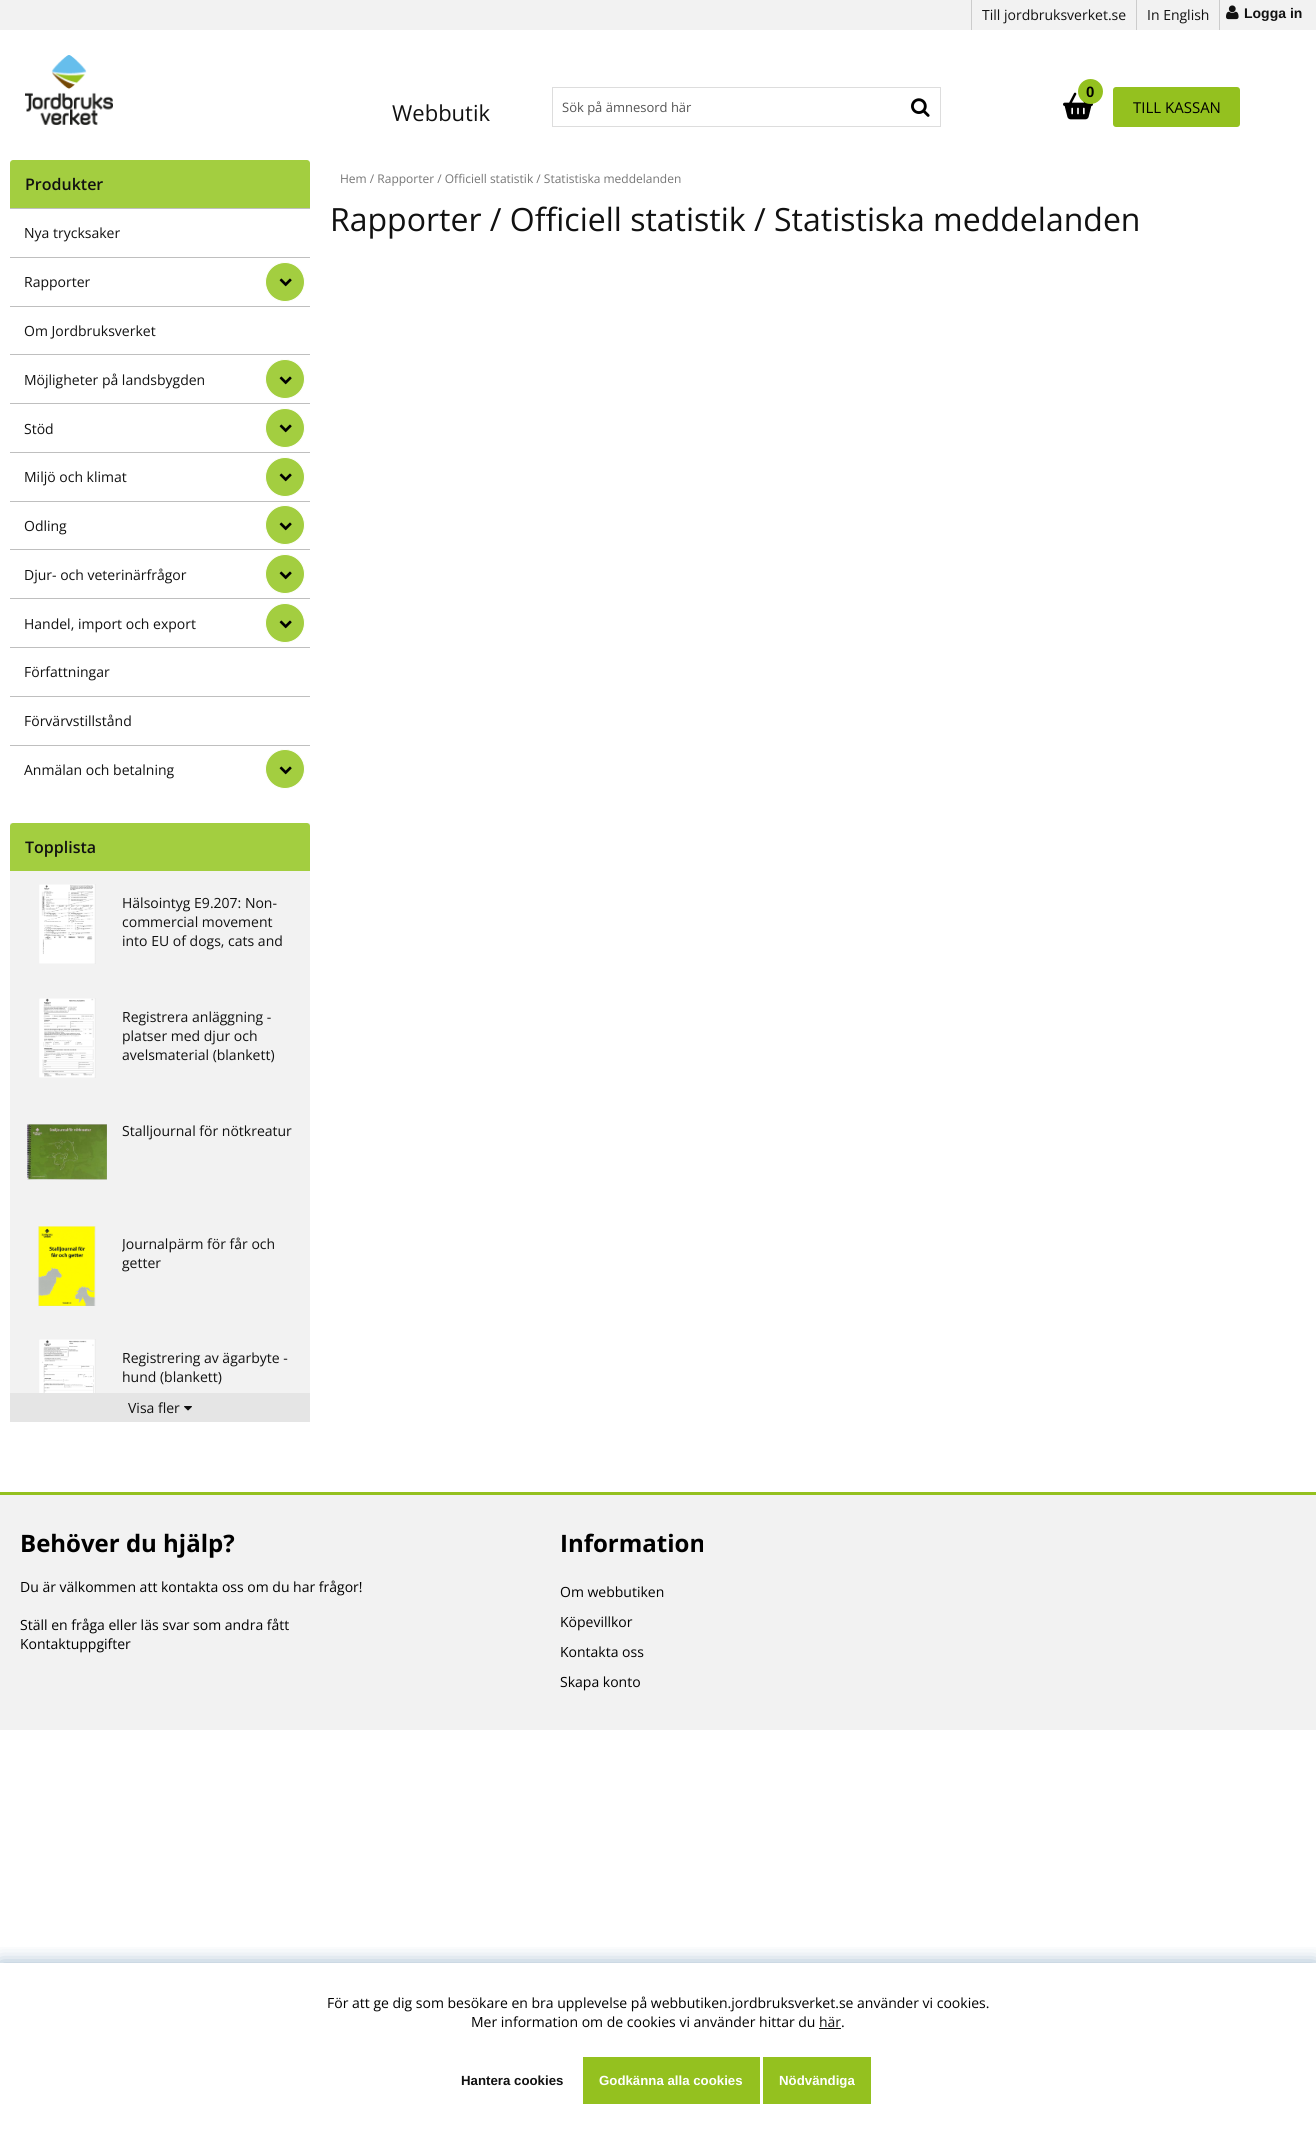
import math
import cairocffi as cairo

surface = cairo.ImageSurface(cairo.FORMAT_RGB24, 1316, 2144)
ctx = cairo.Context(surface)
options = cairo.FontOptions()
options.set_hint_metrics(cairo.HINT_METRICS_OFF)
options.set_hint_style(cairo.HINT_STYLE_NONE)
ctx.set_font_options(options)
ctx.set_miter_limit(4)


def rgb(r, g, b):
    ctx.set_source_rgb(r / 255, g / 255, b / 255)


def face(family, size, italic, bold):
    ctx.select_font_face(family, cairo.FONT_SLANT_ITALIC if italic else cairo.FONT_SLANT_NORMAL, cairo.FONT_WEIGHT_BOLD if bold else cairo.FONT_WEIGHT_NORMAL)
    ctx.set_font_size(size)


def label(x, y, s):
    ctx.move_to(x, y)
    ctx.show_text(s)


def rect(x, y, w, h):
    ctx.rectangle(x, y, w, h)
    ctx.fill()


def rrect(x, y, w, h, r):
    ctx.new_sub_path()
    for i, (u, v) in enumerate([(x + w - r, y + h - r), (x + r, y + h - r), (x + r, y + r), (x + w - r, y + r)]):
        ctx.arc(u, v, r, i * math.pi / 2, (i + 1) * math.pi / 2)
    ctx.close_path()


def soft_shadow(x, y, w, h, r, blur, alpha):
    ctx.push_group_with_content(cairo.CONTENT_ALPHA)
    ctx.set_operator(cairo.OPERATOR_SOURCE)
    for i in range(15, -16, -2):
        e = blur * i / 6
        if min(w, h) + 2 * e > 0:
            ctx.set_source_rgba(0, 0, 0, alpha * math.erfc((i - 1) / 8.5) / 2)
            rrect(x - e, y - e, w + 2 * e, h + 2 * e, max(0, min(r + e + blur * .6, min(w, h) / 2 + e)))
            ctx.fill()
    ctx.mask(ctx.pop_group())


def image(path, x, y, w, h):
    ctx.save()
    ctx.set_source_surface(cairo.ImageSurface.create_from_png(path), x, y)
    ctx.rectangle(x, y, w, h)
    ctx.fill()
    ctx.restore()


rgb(255, 255, 255)
ctx.paint()
rgb(242, 242, 242)
rect(0, 0, 1316, 30)
rgb(204, 204, 204)
rect(1136, 0, 1, 30)
rect(971, 0, 1, 30)
face('Open Sans', 14, 0, 0)
rgb(17, 17, 17)
label(982, 20, 'Till jordbruksverket.se')
rgb(204, 204, 204)
rect(1219, 0, 1, 30)
rgb(17, 17, 17)
label(1147, 20, 'In English')
image('image0.png', 1226, 5, 13, 15)
face('Liberation Sans', 14, 0, 1)
label(1244, 18, 'Logga in')
image('image1.png', 25, 55, 88, 70)
face('Open Sans', 22, 0, 0)
label(392, 121, 'Webbutik')
ctx.rectangle(552.5, 87.5, 388, 39)
rgb(221, 221, 221)
ctx.set_line_width(1)
ctx.stroke()
face('Open Sans', 13, 0, 0)
rgb(85, 85, 85)
label(562, 112, 'Sök på ämnesord här')
image('image2.png', 911, 98, 19, 19)
image('image3.png', 1063, 92, 30, 28)
rgb(148, 193, 31)
ctx.arc(1090.5, 91.5, 12.5, 0, 2 * math.pi)
ctx.fill()
face('Liberation Sans', 15, 0, 1)
rgb(0, 0, 0)
label(1086, 97, '0')
rgb(148, 193, 31)
rrect(1113, 87, 127, 40, 3)
ctx.fill()
face('Open Sans', 15, 0, 0)
rgb(0, 0, 0)
label(1133, 113, 'TILL KASSAN')
rgb(163, 206, 64)
ctx.new_path()
ctx.move_to(13, 160)
ctx.line_to(307, 160)
ctx.curve_to(308.5, 160, 310, 161.5, 310, 163)
ctx.line_to(310, 208)
ctx.line_to(10, 208)
ctx.line_to(10, 163)
ctx.curve_to(10, 161.5, 11.5, 160, 13, 160)
ctx.close_path()
ctx.fill()
face('Open Sans SemiBold', 16, 0, 0)
rgb(17, 17, 17)
label(25, 190, 'Produkter')
rgb(191, 191, 191)
rect(10, 208, 300, 1)
face('Open Sans', 14, 0, 0)
rgb(17, 17, 17)
label(24, 238, 'Nya trycksaker')
rgb(191, 191, 191)
rect(10, 257, 300, 1)
rgb(17, 17, 17)
label(24, 287, 'Rapporter')
rgb(163, 206, 64)
ctx.new_path()
ctx.arc(285, 282, 19.5, 0, 2 * math.pi)
ctx.fill_preserve()
rgb(255, 255, 255)
ctx.stroke()
image('image4.png', 279, 278, 13, 9)
rgb(191, 191, 191)
rect(10, 306, 300, 1)
rgb(17, 17, 17)
label(24, 336, 'Om Jordbruksverket')
rgb(191, 191, 191)
rect(10, 354, 300, 1)
rgb(17, 17, 17)
label(24, 385, 'Möjligheter på landsbygden')
rgb(163, 206, 64)
ctx.new_path()
ctx.arc(285, 379, 19.5, 0, 2 * math.pi)
ctx.fill_preserve()
rgb(255, 255, 255)
ctx.stroke()
image('image4.png', 279, 376, 13, 9)
rgb(191, 191, 191)
rect(10, 403, 300, 1)
rgb(17, 17, 17)
label(24, 434, 'Stöd')
rgb(163, 206, 64)
ctx.new_path()
ctx.arc(285, 428, 19.5, 0, 2 * math.pi)
ctx.fill_preserve()
rgb(255, 255, 255)
ctx.stroke()
image('image4.png', 279, 424, 13, 9)
rgb(191, 191, 191)
rect(10, 452, 300, 1)
rgb(17, 17, 17)
label(24, 482, 'Miljö och klimat')
rgb(163, 206, 64)
ctx.new_path()
ctx.arc(285, 477, 19.5, 0, 2 * math.pi)
ctx.fill_preserve()
rgb(255, 255, 255)
ctx.stroke()
image('image4.png', 279, 473, 13, 9)
rgb(191, 191, 191)
rect(10, 501, 300, 1)
rgb(17, 17, 17)
label(24, 531, 'Odling')
rgb(163, 206, 64)
ctx.new_path()
ctx.arc(285, 525, 19.5, 0, 2 * math.pi)
ctx.fill_preserve()
rgb(255, 255, 255)
ctx.stroke()
image('image4.png', 279, 522, 13, 9)
rgb(191, 191, 191)
rect(10, 549, 300, 1)
rgb(17, 17, 17)
label(24, 580, 'Djur- och veterinärfrågor')
rgb(163, 206, 64)
ctx.new_path()
ctx.arc(285, 574, 19.5, 0, 2 * math.pi)
ctx.fill_preserve()
rgb(255, 255, 255)
ctx.stroke()
image('image4.png', 279, 571, 13, 9)
rgb(191, 191, 191)
rect(10, 598, 300, 1)
rgb(17, 17, 17)
label(24, 629, 'Handel, import och export')
rgb(163, 206, 64)
ctx.new_path()
ctx.arc(285, 623, 19.5, 0, 2 * math.pi)
ctx.fill_preserve()
rgb(255, 255, 255)
ctx.stroke()
image('image4.png', 279, 620, 13, 9)
rgb(191, 191, 191)
rect(10, 647, 300, 1)
rgb(17, 17, 17)
label(24, 677, 'Författningar')
rgb(191, 191, 191)
rect(10, 696, 300, 1)
rgb(17, 17, 17)
label(24, 726, 'Förvärvstillstånd')
rgb(191, 191, 191)
rect(10, 745, 300, 1)
rgb(17, 17, 17)
label(24, 775, 'Anmälan och betalning')
rgb(163, 206, 64)
ctx.new_path()
ctx.arc(285, 769, 19.5, 0, 2 * math.pi)
ctx.fill_preserve()
rgb(255, 255, 255)
ctx.stroke()
image('image4.png', 279, 766, 13, 9)
rgb(242, 242, 242)
rect(10, 823, 300, 570)
rgb(163, 206, 64)
ctx.new_path()
ctx.move_to(13, 823)
ctx.line_to(307, 823)
ctx.curve_to(308.5, 823, 310, 824.5, 310, 826)
ctx.line_to(310, 871)
ctx.line_to(10, 871)
ctx.line_to(10, 826)
ctx.curve_to(10, 824.5, 11.5, 823, 13, 823)
ctx.close_path()
ctx.fill()
face('Open Sans SemiBold', 16, 0, 0)
rgb(17, 17, 17)
label(25, 853, 'Topplista')
image('image5.png', 39, 884, 57, 80)
face('Open Sans', 14, 0, 0)
label(122, 908, 'Hälsointyg E9.207: Non-')
label(122, 927, 'commercial movement')
label(122, 946, 'into EU of dogs, cats and')
image('image6.png', 39, 998, 57, 80)
label(122, 1022, 'Registrera anläggning -')
label(122, 1041, 'platser med djur och')
label(122, 1060, 'avelsmaterial (blankett)')
image('image7.png', 27, 1124, 80, 56)
label(122, 1136, 'Stalljournal för nötkreatur')
image('image8.png', 38, 1226, 58, 80)
ctx.save()
ctx.rectangle(122, 1234, 175, 63)
ctx.clip()
label(122, 1249, 'Journalpärm för får och')
ctx.restore()
label(122, 1268, 'getter')
image('image9.png', 39, 1339, 57, 54)
label(122, 1363, 'Registrering av ägarbyte -')
label(122, 1382, 'hund (blankett)')
rgb(229, 229, 229)
rect(10, 1393, 300, 29)
rgb(17, 17, 17)
label(128, 1413, 'Visa fler')
image('image10.png', 184, 1406, 8, 5)
face('Open Sans', 12, 0, 0)
rgb(118, 118, 118)
label(340, 183, 'Hem / Rapporter / Officiell statistik / Statistiska meddelanden')
face('Open Sans', 32, 0, 0)
rgb(17, 17, 17)
label(330, 231, 'Rapporter / Officiell statistik / Statistiska meddelanden')
rgb(242, 242, 242)
rect(0, 1495, 1316, 235)
rgb(148, 193, 31)
rect(0, 1492, 1316, 3)
face('Open Sans', 24, 0, 1)
rgb(0, 0, 0)
label(20, 1552, 'Behöver du hjälp?')
face('Open Sans', 14, 0, 0)
label(20, 1592, 'Du är välkommen att kontakta oss om du har frågor!')
label(20, 1630, 'Ställ en fråga eller läs svar som andra fått')
label(20, 1649, 'Kontaktuppgifter')
face('Open Sans', 24, 0, 1)
label(560, 1552, 'Information')
face('Open Sans', 14, 0, 0)
label(560, 1597, 'Om webbutiken')
label(560, 1627, 'Köpevillkor')
label(560, 1657, 'Kontakta oss')
label(560, 1687, 'Skapa konto')
ctx.save()
ctx.rectangle(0, 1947, 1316, 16)
ctx.clip()
rgb(0, 66, 122)
soft_shadow(0, 1964, 1316, 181, 0, 10, 0.44)
ctx.restore()
label(327, 2008, 'För att ge dig som besökare en bra upplevelse på webbutiken.jordbruksverket.se använder vi cookies.')
label(471, 2027, 'Mer information om de cookies vi använder hittar du')
rgb(17, 17, 17)
label(819, 2027, 'här')
rect(819, 2028, 22, 1)
rgb(0, 0, 0)
label(841, 2027, '.')
face('Liberation Sans', 13.25, 0, 1)
rgb(17, 17, 17)
label(461, 2085, 'Hantera cookies')
rgb(148, 193, 31)
rect(583, 2057, 177, 47)
rgb(255, 255, 255)
label(599, 2085, 'Godkänna alla cookies')
rgb(148, 193, 31)
rect(763, 2057, 108, 47)
rgb(255, 255, 255)
label(779, 2085, 'Nödvändiga')
surface.write_to_png('render.png')
